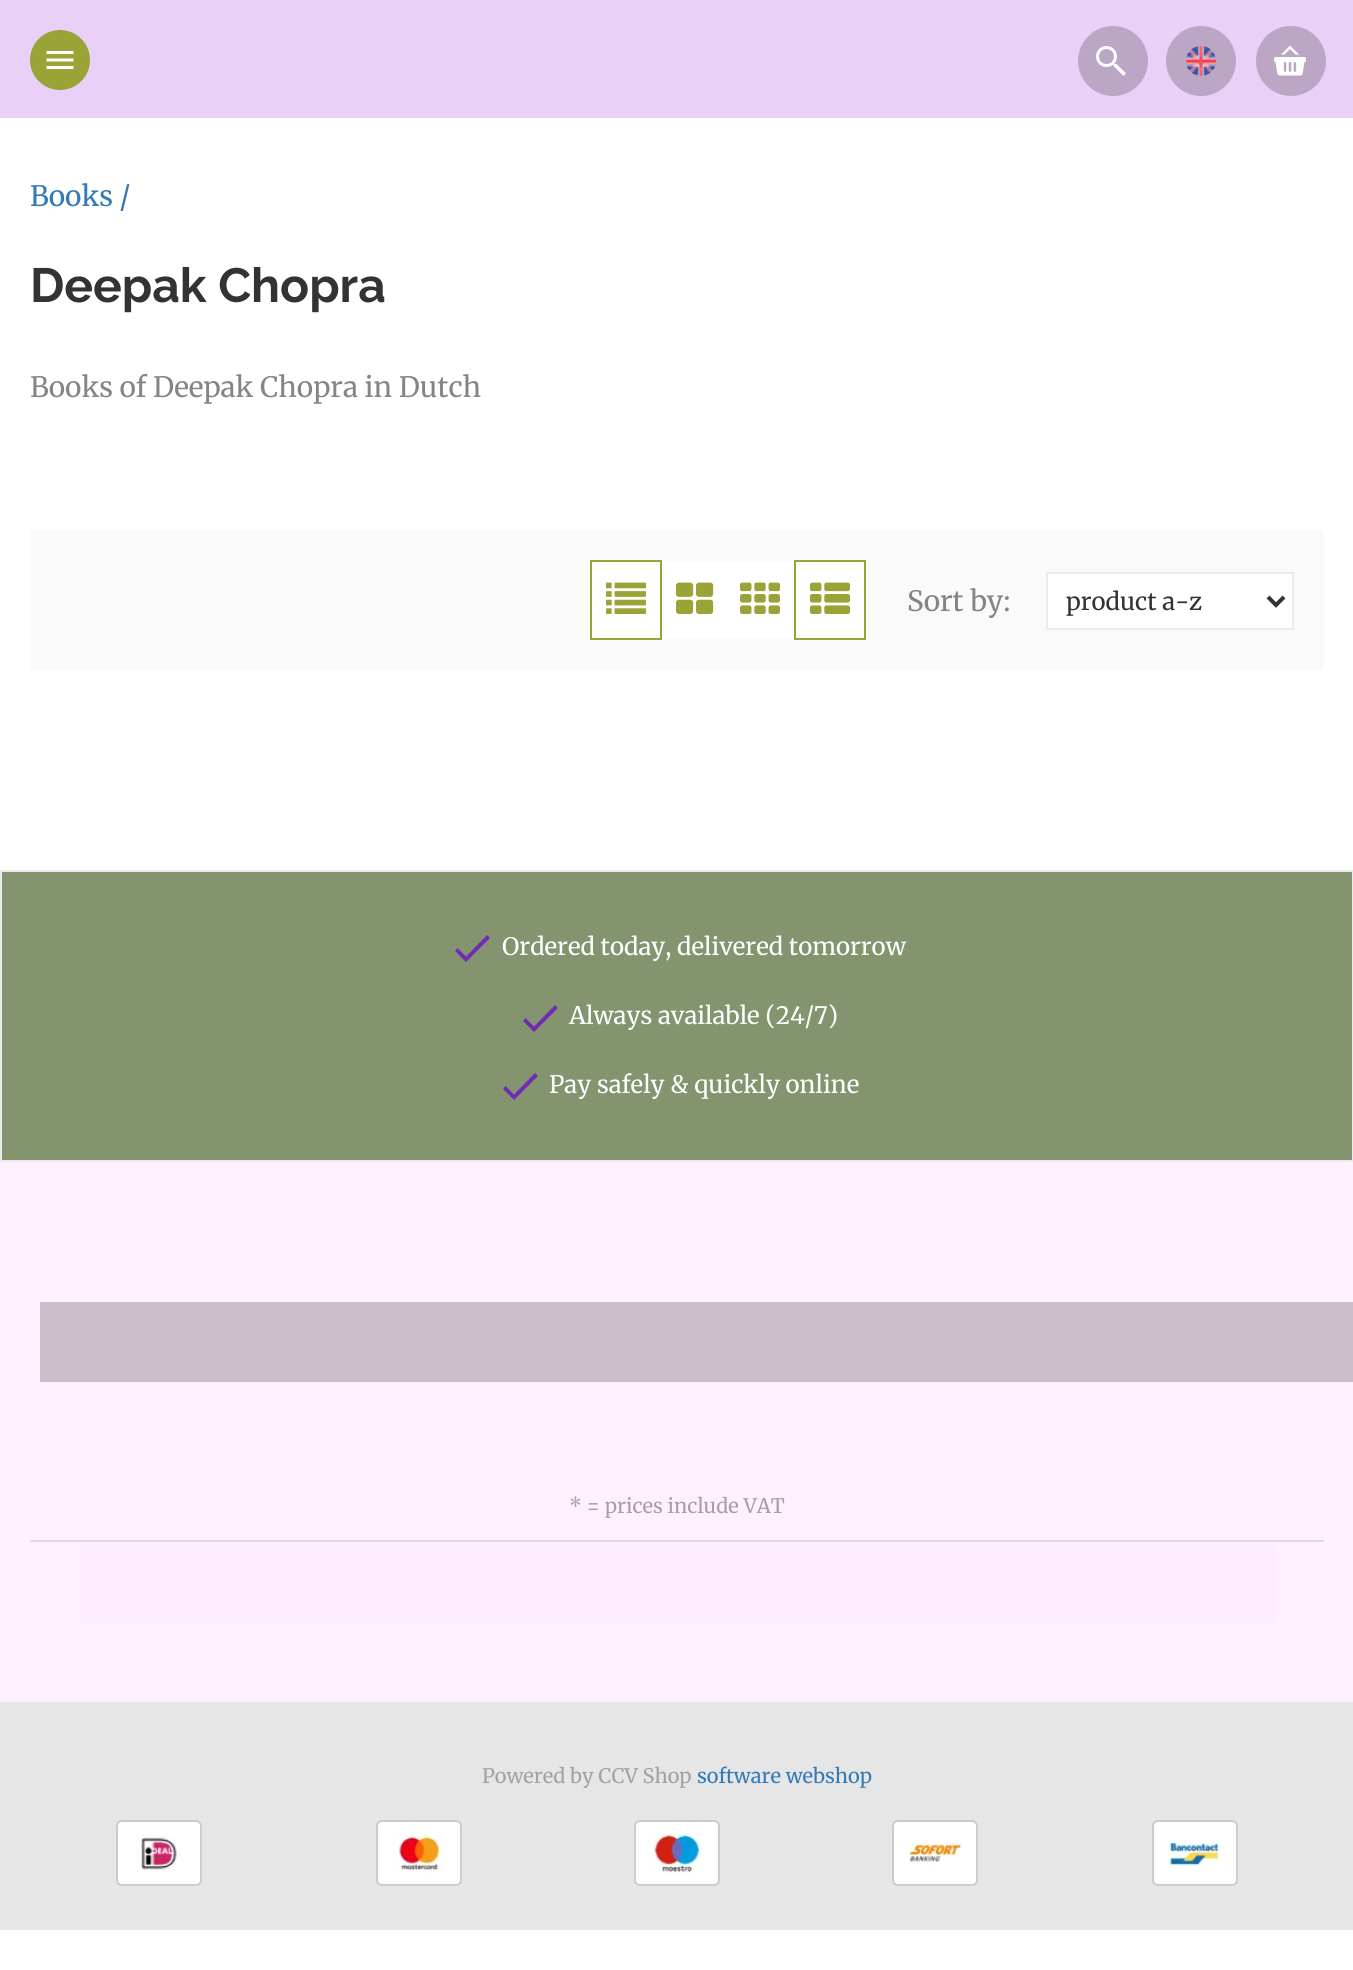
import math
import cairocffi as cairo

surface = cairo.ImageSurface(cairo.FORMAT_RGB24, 1353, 1970)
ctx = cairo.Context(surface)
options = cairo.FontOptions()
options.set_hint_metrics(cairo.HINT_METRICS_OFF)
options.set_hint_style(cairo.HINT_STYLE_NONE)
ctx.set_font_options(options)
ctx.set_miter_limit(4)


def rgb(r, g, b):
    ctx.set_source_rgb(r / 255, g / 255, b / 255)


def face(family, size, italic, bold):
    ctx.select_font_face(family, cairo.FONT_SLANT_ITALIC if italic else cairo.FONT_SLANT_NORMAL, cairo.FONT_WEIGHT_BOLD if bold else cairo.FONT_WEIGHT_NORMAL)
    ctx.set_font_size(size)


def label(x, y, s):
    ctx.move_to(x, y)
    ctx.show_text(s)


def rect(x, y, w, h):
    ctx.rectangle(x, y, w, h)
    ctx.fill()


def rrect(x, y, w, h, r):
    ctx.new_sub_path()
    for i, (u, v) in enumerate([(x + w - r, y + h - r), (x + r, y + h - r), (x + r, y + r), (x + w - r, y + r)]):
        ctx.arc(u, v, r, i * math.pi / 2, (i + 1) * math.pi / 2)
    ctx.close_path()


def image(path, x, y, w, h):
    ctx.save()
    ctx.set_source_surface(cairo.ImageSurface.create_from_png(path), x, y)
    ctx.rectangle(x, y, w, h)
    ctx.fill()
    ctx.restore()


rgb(255, 255, 255)
ctx.paint()
rgb(234, 207, 247)
rect(0, 0, 1353, 118)
rgb(154, 163, 54)
ctx.arc(60, 60, 30, 0, 2 * math.pi)
ctx.fill()
image('image0.png', 46, 51, 28, 18)
rgb(187, 166, 198)
ctx.arc(1113, 61, 35, 0, 2 * math.pi)
ctx.fill()
image('image1.png', 1096, 46, 30, 30)
ctx.arc(1201, 61, 35, 0, 2 * math.pi)
ctx.fill()
image('image2.png', 1186, 46, 30, 30)
ctx.arc(1291, 61, 35, 0, 2 * math.pi)
ctx.fill()
image('image3.png', 1274, 46, 32, 30)
face('Merriweather', 28, 0, 0)
rgb(51, 122, 183)
label(30, 206, 'Books /')
face('Raleway', 48, 0, 1)
rgb(51, 51, 51)
label(30, 302, 'Deepak Chopra')
face('Merriweather', 28, 0, 0)
rgb(133, 133, 133)
label(30, 397, 'Books of Deepak Chopra in Dutch')
rgb(250, 250, 250)
rect(30, 530, 1294, 140)
rgb(255, 255, 255)
ctx.rectangle(591, 561, 70, 78)
ctx.fill_preserve()
rgb(154, 163, 54)
ctx.stroke()
image('image4.png', 606, 582, 40, 32)
rgb(255, 255, 255)
rect(662, 562, 132, 76)
image('image5.png', 676, 582, 38, 32)
ctx.rectangle(795, 561, 70, 78)
ctx.fill_preserve()
rgb(154, 163, 54)
ctx.stroke()
image('image6.png', 810, 582, 40, 32)
image('image7.png', 740, 582, 40, 32)
rgb(133, 133, 133)
label(907, 611, 'Sort by:')
rgb(255, 255, 255)
ctx.rectangle(1047, 573, 246, 56)
ctx.fill_preserve()
rgb(235, 235, 235)
ctx.stroke()
ctx.new_path()
ctx.move_to(1268, 597)
ctx.line_to(1276, 605)
ctx.line_to(1284, 597)
rgb(51, 51, 51)
ctx.set_line_width(4)
ctx.stroke()
face('Merriweather', 24, 0, 0)
label(1066, 610, 'product a-z')
rgb(131, 148, 111)
ctx.rectangle(1, 871, 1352, 290)
ctx.fill_preserve()
rgb(235, 235, 235)
ctx.set_line_width(2)
ctx.stroke()
rgb(114, 43, 181)
ctx.new_path()
ctx.move_to(466, 956.5)
ctx.line_to(487, 935)
ctx.line_to(490, 938)
ctx.line_to(466, 962)
ctx.line_to(455, 951)
ctx.line_to(457.5, 948)
ctx.close_path()
ctx.fill()
rgb(255, 255, 255)
label(502, 955, 'Ordered today, delivered tomorrow')
rgb(114, 43, 181)
ctx.new_path()
ctx.move_to(534, 1026.5)
ctx.line_to(555, 1005)
ctx.line_to(558, 1008)
ctx.line_to(534, 1032)
ctx.line_to(523, 1021)
ctx.line_to(525.5, 1018)
ctx.close_path()
ctx.fill()
rgb(255, 255, 255)
label(569, 1024, 'Always available (24/7)')
rgb(114, 43, 181)
ctx.new_path()
ctx.move_to(514, 1094.5)
ctx.line_to(535, 1073)
ctx.line_to(538, 1076)
ctx.line_to(514, 1100)
ctx.line_to(503, 1089)
ctx.line_to(505.5, 1086)
ctx.close_path()
ctx.fill()
rgb(255, 255, 255)
label(549, 1093, 'Pay safely & quickly online')
rgb(254, 240, 255)
rect(0, 1162, 1353, 540)
rgb(203, 192, 204)
rect(40, 1302, 1313, 80)
rgb(225, 215, 225)
rect(30, 1540, 1294, 2)
face('Merriweather', 20, 0, 0)
rgb(163, 161, 161)
label(569, 1513, '* = prices include VAT')
rgb(254, 237, 252)
rect(80, 1544, 1194, 80)
rgb(230, 230, 230)
rect(0, 1702, 1353, 228)
rgb(163, 161, 161)
label(482, 1783, 'Powered by CCV Shop')
rgb(51, 122, 183)
label(697, 1783, 'software webshop')
rgb(255, 255, 255)
rrect(117, 1821, 84, 64, 5)
ctx.fill_preserve()
rgb(204, 204, 204)
ctx.stroke()
image('image8.png', 141, 1835, 36, 35)
rgb(255, 255, 255)
rrect(377, 1821, 84, 64, 5)
ctx.fill_preserve()
rgb(204, 204, 204)
ctx.stroke()
image('image9.png', 394, 1834, 50, 40)
rgb(255, 255, 255)
rrect(635, 1821, 84, 64, 5)
ctx.fill_preserve()
rgb(204, 204, 204)
ctx.stroke()
image('image10.png', 650, 1833, 52, 41)
rgb(255, 255, 255)
rrect(893, 1821, 84, 64, 5)
ctx.fill_preserve()
rgb(204, 204, 204)
ctx.stroke()
image('image11.png', 908, 1842, 54, 23)
rgb(255, 255, 255)
rrect(1153, 1821, 84, 64, 5)
ctx.fill_preserve()
rgb(204, 204, 204)
ctx.stroke()
image('image12.png', 1168, 1842, 53, 27)
surface.write_to_png('render.png')
